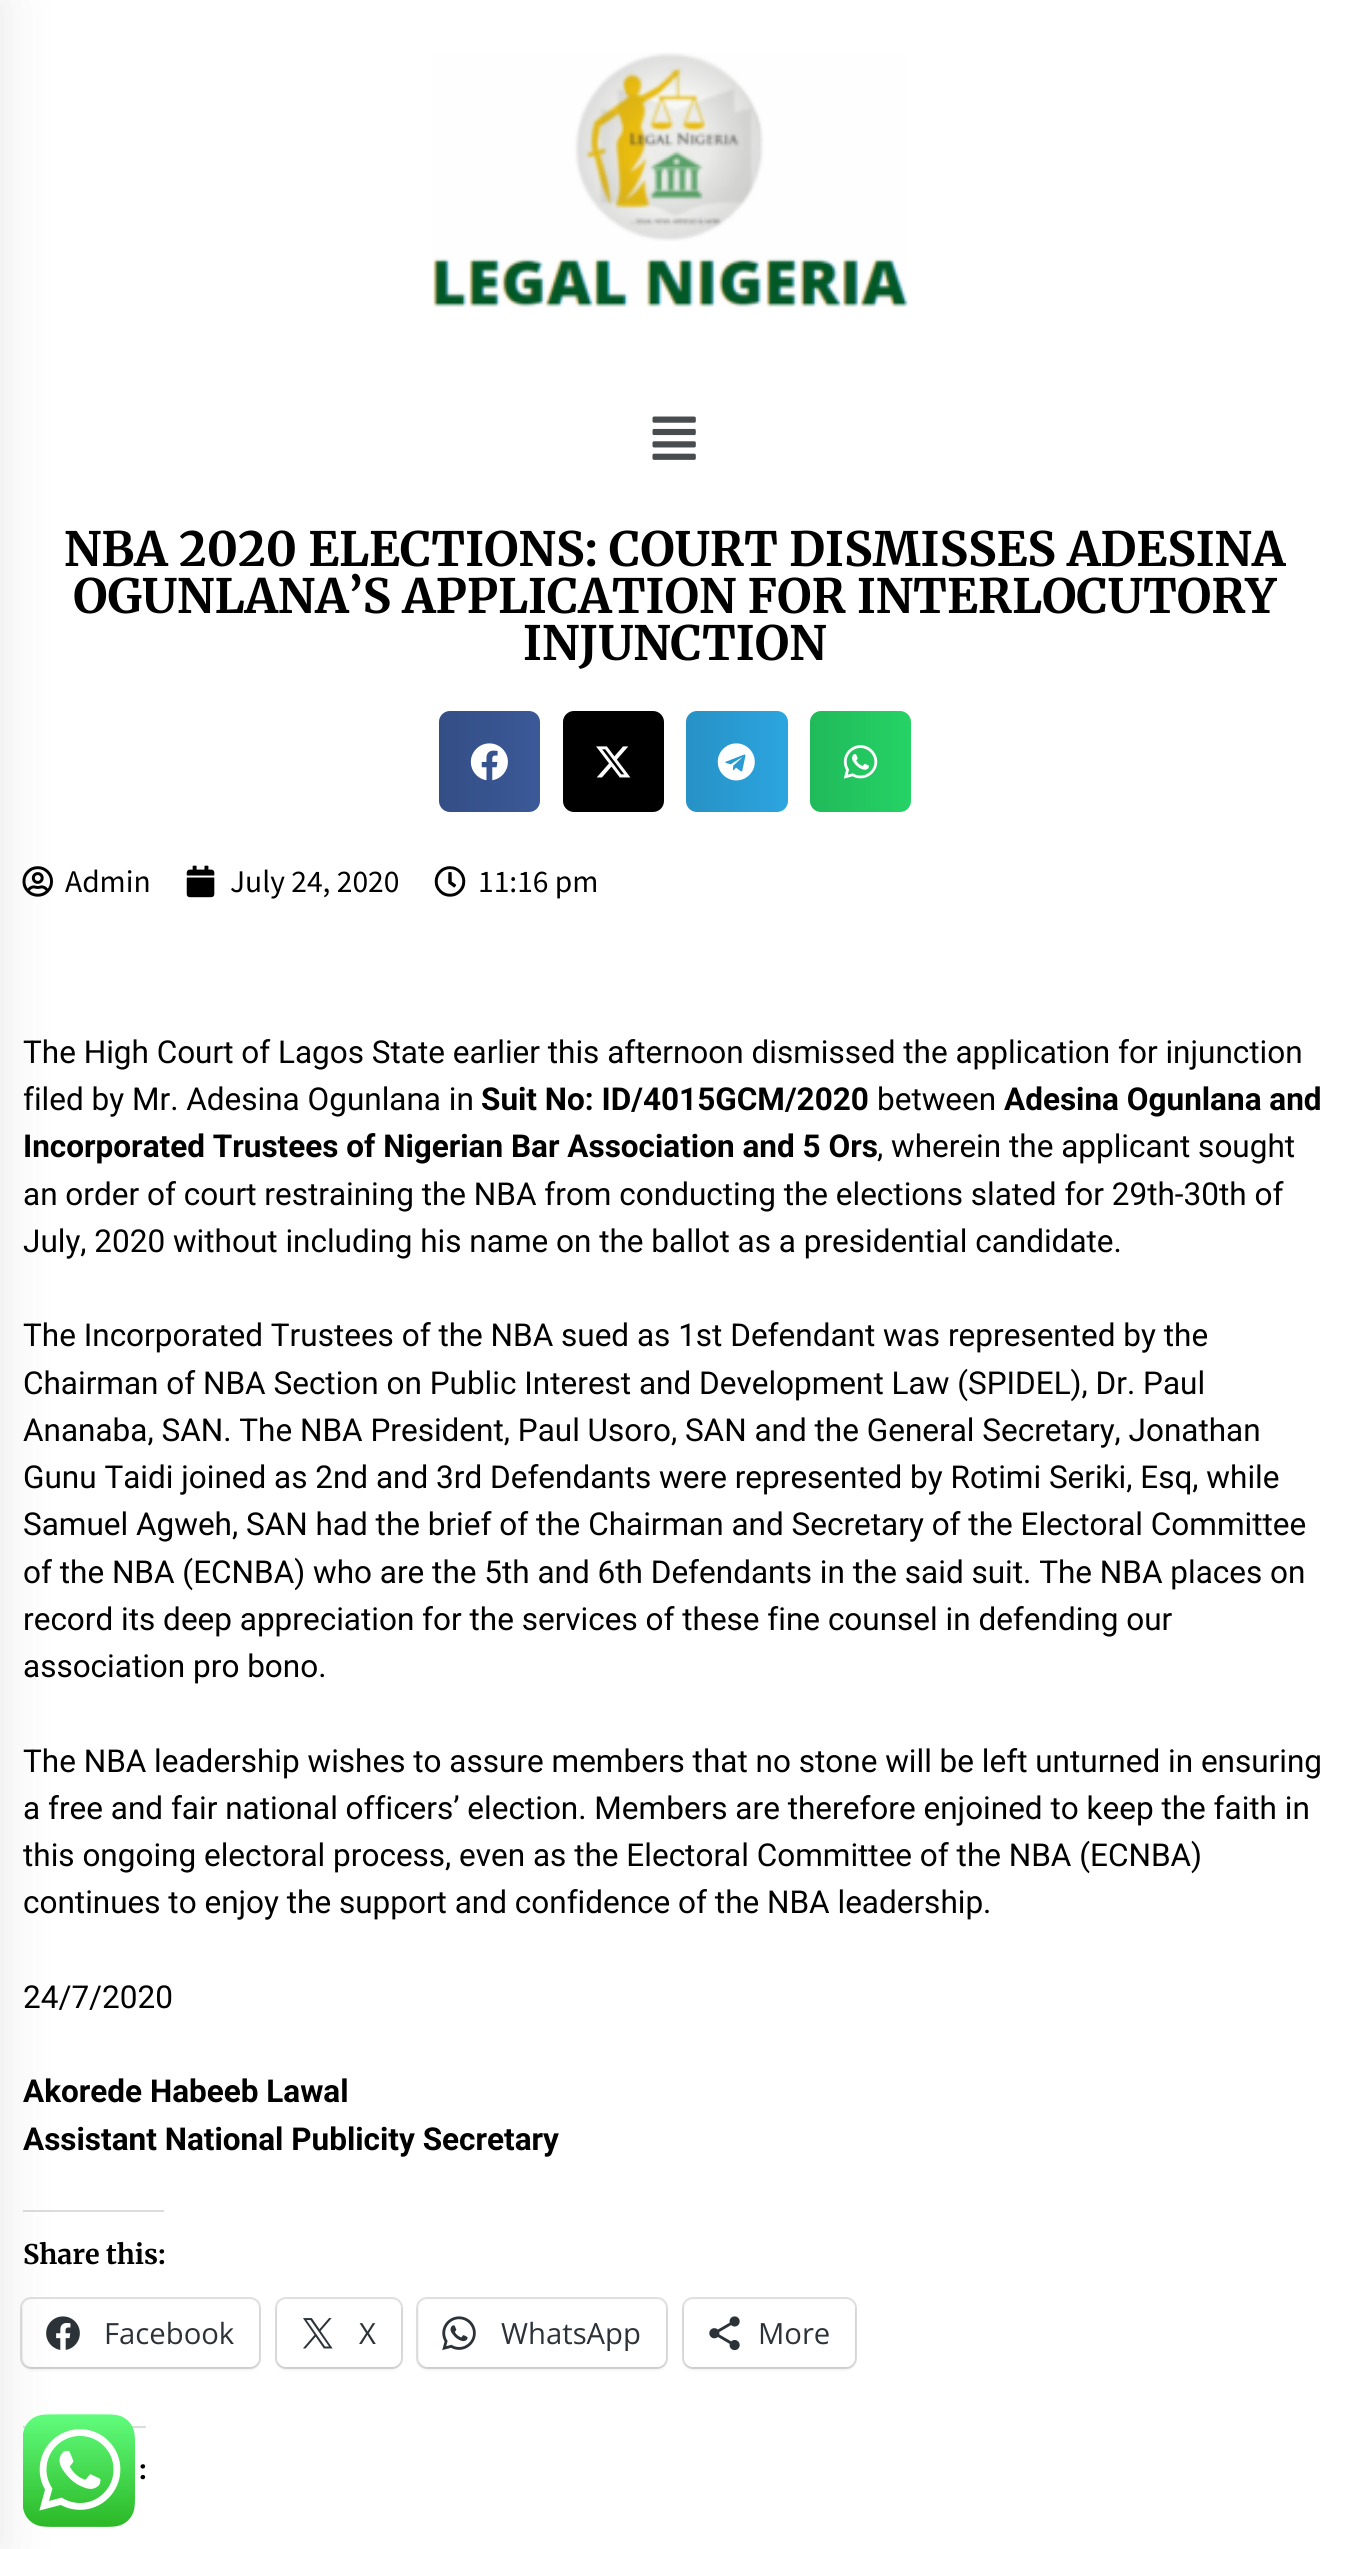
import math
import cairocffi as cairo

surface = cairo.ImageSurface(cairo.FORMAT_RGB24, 1348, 2549)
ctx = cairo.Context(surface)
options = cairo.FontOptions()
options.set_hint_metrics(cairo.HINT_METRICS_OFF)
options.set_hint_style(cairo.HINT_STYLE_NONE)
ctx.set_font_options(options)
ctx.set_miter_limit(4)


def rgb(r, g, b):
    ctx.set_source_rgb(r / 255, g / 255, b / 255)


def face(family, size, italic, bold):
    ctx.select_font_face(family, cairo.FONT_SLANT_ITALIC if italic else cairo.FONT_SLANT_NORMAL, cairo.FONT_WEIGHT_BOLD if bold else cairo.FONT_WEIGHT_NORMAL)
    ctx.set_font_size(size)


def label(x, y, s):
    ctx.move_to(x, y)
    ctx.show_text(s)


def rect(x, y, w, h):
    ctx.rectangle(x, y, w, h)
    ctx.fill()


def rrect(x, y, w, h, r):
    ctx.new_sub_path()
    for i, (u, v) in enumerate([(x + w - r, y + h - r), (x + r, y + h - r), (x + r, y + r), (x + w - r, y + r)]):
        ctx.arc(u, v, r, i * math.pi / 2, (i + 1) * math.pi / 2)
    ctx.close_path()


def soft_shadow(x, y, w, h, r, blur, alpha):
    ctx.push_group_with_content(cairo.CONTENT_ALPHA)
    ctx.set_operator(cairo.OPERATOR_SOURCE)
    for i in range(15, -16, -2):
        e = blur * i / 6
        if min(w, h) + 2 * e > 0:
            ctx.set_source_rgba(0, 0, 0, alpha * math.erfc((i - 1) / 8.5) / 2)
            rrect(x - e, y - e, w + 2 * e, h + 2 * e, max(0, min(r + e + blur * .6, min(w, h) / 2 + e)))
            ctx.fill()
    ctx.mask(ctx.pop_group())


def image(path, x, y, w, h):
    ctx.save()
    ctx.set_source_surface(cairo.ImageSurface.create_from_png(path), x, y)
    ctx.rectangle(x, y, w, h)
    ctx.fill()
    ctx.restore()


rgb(255, 255, 255)
ctx.paint()
image('image6.png', 22, 866, 31, 31)
rgb(220, 220, 222)
rect(23, 2210, 141, 2)
rrect(21, 2298, 239, 70, 10)
rgb(224, 224, 224)
ctx.stroke()
rgb(0, 0, 0)
soft_shadow(23, 2302, 236, 67, 9, 2, 0.12)
rgb(255, 255, 255)
rrect(23, 2300, 236, 67, 9)
ctx.fill()
image('image9.png', 46, 2316, 34, 34)
rgb(220, 220, 222)
rect(23, 2426, 123, 2)
rgb(0, 0, 0)
soft_shadow(-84, 0, 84, 2549, 0, 28, 0.1)
image('image0.png', 432, 52, 476, 255)
image('image1.png', 652, 416, 44, 44)
face('Merriweather', 47.25, 0, 1)
rgb(0, 0, 0)
label(64, 566, 'NBA 2020 ELECTIONS: COURT DISMISSES ADESINA')
label(73, 613, 'OGUNLANA’S APPLICATION FOR INTERLOCUTORY')
label(523, 660, 'INJUNCTION')
rgb(59, 89, 152)
rrect(439, 711, 101, 101, 11)
ctx.fill()
gradient = cairo.LinearGradient(439, 762, 540, 762)
gradient.add_color_stop_rgba(0, 0, 0, 0, 0.12)
gradient.add_color_stop_rgba(1, 0, 0, 0, 0)
ctx.set_source(gradient)
rrect(439, 711, 101, 101, 11)
ctx.fill()
image('image2.png', 470, 743, 38, 38)
rgb(0, 0, 0)
rrect(563, 711, 101, 101, 11)
ctx.fill()
gradient = cairo.LinearGradient(563, 762, 664, 762)
gradient.add_color_stop_rgba(0, 0, 0, 0, 0.12)
gradient.add_color_stop_rgba(1, 0, 0, 0, 0)
ctx.set_source(gradient)
rrect(563, 711, 101, 101, 11)
ctx.fill()
image('image3.png', 596, 746, 35, 32)
rgb(44, 165, 224)
rrect(686, 711, 102, 101, 11)
ctx.fill()
gradient = cairo.LinearGradient(686, 762, 788, 762)
gradient.add_color_stop_rgba(0, 0, 0, 0, 0.12)
gradient.add_color_stop_rgba(1, 0, 0, 0, 0)
ctx.set_source(gradient)
rrect(686, 711, 102, 101, 11)
ctx.fill()
image('image4.png', 717, 743, 38, 38)
rgb(37, 211, 102)
rrect(810, 711, 101, 101, 11)
ctx.fill()
gradient = cairo.LinearGradient(810, 762, 911, 762)
gradient.add_color_stop_rgba(0, 0, 0, 0, 0.12)
gradient.add_color_stop_rgba(1, 0, 0, 0, 0)
ctx.set_source(gradient)
rrect(810, 711, 101, 101, 11)
ctx.fill()
image('image5.png', 843, 745, 35, 34)
face('Source Sans Pro', 31.5, 0, 0)
rgb(0, 0, 0)
label(65, 892, 'Admin')
image('image7.png', 186, 865, 29, 33)
label(230, 892, 'July 24, 2020')
image('image8.png', 434, 866, 32, 31)
label(478, 892, '11:16 pm')
face('Roboto', 31.5, 0, 0)
label(23, 1063, 'The High Court of Lagos State earlier this afternoon dismissed the application for injunction')
label(23, 1110, 'filed by Mr. Adesina Ogunlana in')
face('Roboto', 31.5, 0, 1)
label(481, 1110, 'Suit No: ID/4015GCM/2020')
face('Roboto', 31.5, 0, 0)
label(877, 1110, 'between')
face('Roboto', 31.5, 0, 1)
label(1004, 1110, 'Adesina Ogunlana and')
label(23, 1157, 'Incorporated Trustees of Nigerian Bar Association and 5 Ors')
face('Roboto', 31.5, 0, 0)
label(877, 1157, ', wherein the applicant sought')
label(23, 1205, 'an order of court restraining the NBA from conducting the elections slated for 29th-30th of')
label(23, 1252, 'July, 2020 without including his name on the ballot as a presidential candidate.')
label(23, 1346, 'The Incorporated Trustees of the NBA sued as 1st Defendant was represented by the')
label(23, 1394, 'Chairman of NBA Section on Public Interest and Development Law (SPIDEL), Dr. Paul')
label(23, 1441, 'Ananaba, SAN. The NBA President, Paul Usoro, SAN and the General Secretary, Jonathan')
label(23, 1488, 'Gunu Taidi joined as 2nd and 3rd Defendants were represented by Rotimi Seriki, Esq, while')
label(23, 1535, 'Samuel Agweh, SAN had the brief of the Chairman and Secretary of the Electoral Committee')
label(23, 1583, 'of the NBA (ECNBA) who are the 5th and 6th Defendants in the said suit. The NBA places on')
label(23, 1630, 'record its deep appreciation for the services of these fine counsel in defending our')
label(23, 1677, 'association pro bono.')
label(23, 1772, 'The NBA leadership wishes to assure members that no stone will be left unturned in ensuring')
label(23, 1819, 'a free and fair national officers’ election. Members are therefore enjoined to keep the faith in')
label(23, 1866, 'this ongoing electoral process, even as the Electoral Committee of the NBA (ECNBA)')
label(23, 1913, 'continues to enjoy the support and confidence of the NBA leadership.')
label(23, 2008, '24/7/2020')
face('Roboto', 31.5, 0, 1)
label(23, 2102, 'Akorede Habeeb Lawal')
label(23, 2150, 'Assistant National Publicity Secretary')
face('Merriweather', 27, 0, 1)
label(23, 2264, 'Share this:')
face('Open Sans', 29.25, 0, 0)
rgb(44, 51, 56)
label(104, 2344, 'Facebook')
rrect(276, 2298, 126, 70, 10)
rgb(224, 224, 224)
ctx.stroke()
rgb(0, 0, 0)
soft_shadow(277, 2302, 124, 67, 9, 2, 0.12)
rgb(255, 255, 255)
rrect(277, 2300, 124, 67, 9)
ctx.fill()
image('image10.png', 303, 2318, 30, 31)
rgb(44, 51, 56)
label(359, 2344, 'X')
rrect(417, 2298, 250, 70, 10)
rgb(224, 224, 224)
ctx.stroke()
rgb(0, 0, 0)
soft_shadow(419, 2302, 247, 67, 9, 2, 0.12)
rgb(255, 255, 255)
rrect(419, 2300, 247, 67, 9)
ctx.fill()
image('image11.png', 442, 2316, 34, 34)
rgb(44, 51, 56)
label(501, 2344, 'WhatsApp')
rrect(683, 2298, 173, 70, 10)
rgb(224, 224, 224)
ctx.stroke()
rgb(0, 0, 0)
soft_shadow(684, 2302, 171, 67, 9, 2, 0.12)
rgb(255, 255, 255)
rrect(684, 2300, 171, 67, 9)
ctx.fill()
image('image12.png', 709, 2316, 31, 35)
rgb(44, 51, 56)
label(758, 2344, 'More')
face('Merriweather', 27, 0, 1)
rgb(0, 0, 0)
label(139, 2479, ':')
image('image13.png', 23, 2414, 112, 113)
surface.write_to_png('render.png')
